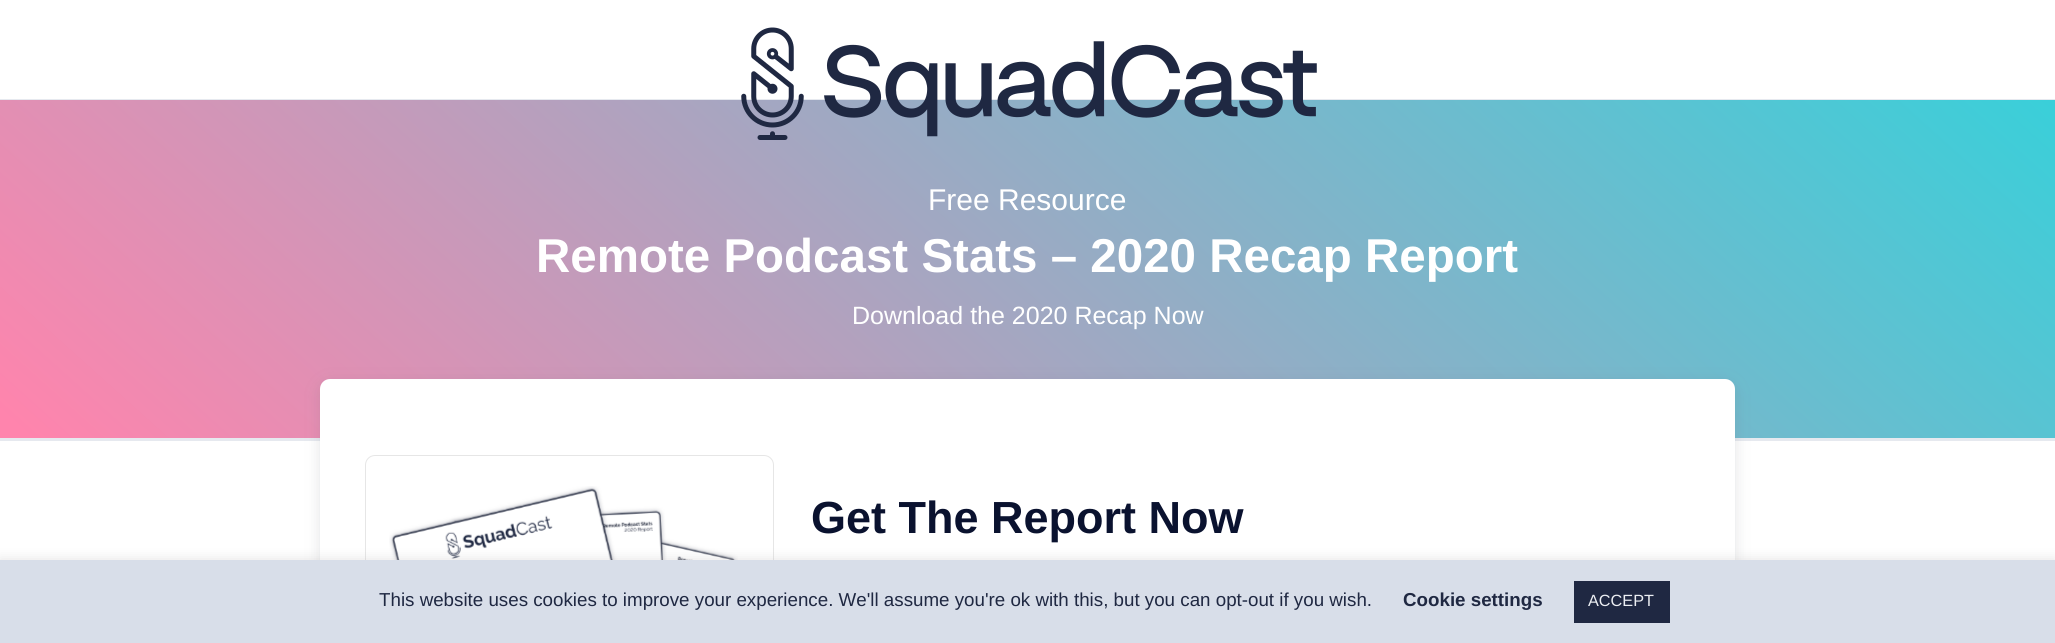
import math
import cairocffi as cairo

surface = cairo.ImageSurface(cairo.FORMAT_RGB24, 2055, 643)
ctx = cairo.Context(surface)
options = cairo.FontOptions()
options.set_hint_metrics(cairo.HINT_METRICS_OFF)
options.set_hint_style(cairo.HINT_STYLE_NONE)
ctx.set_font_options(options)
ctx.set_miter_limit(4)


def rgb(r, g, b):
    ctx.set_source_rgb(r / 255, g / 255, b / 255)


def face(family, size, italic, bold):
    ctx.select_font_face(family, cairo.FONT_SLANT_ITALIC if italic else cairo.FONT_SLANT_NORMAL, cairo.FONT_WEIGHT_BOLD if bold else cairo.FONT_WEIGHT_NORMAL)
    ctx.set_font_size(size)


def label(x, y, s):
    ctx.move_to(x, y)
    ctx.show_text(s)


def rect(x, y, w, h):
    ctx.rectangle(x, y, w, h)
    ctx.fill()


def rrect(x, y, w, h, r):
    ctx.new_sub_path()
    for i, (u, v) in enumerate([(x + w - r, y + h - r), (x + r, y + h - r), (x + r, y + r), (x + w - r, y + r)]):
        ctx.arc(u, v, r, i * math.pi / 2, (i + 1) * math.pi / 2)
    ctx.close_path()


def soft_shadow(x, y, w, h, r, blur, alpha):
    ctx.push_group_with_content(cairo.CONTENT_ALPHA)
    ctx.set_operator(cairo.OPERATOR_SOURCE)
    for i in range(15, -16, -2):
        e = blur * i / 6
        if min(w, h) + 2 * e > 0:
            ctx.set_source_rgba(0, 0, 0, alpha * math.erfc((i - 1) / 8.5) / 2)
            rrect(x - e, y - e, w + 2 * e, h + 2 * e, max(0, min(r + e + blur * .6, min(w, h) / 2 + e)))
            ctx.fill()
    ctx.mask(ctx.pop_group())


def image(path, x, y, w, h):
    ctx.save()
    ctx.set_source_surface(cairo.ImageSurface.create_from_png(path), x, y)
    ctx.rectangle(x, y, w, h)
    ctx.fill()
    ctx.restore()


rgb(255, 255, 255)
ctx.paint()
rgb(230, 233, 239)
rect(0, 99, 2055, 1)
gradient = cairo.LinearGradient(1726, -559, 460, 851)
gradient.add_color_stop_rgba(0, 0.094, 0.863, 0.882, 1)
gradient.add_color_stop_rgba(0.99, 1, 0.518, 0.678, 1)
ctx.set_source(gradient)
rect(0, 100, 2055, 338)
image('image0.png', 741, 27, 576, 113)
rgb(230, 233, 239)
rect(0, 438, 2055, 3)
face('Liberation Sans', 30, 0, 0)
rgb(255, 255, 255)
label(928, 210, 'Free Resource')
face('Liberation Sans', 47.5, 0, 1)
label(536, 272, 'Remote Podcast Stats – 2020 Recap Report')
face('Liberation Sans', 25, 0, 0)
label(852, 324, 'Download the 2020 Recap Now')
rgb(107, 112, 118)
soft_shadow(320, 383, 1415, 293, 10, 7.5, 0.2)
rgb(255, 255, 255)
rrect(320, 379, 1415, 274, 10)
ctx.fill()
rrect(365.5, 455.5, 408, 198, 9.5)
rgb(230, 230, 230)
ctx.set_line_width(1)
ctx.stroke()
image('image1.png', 389, 486, 349, 74)
face('Liberation Sans', 45, 0, 1)
rgb(10, 18, 47)
label(811, 533, 'Get The Report Now')
rgb(172, 171, 171)
soft_shadow(0, 559, 2055, 84, 0, 6, 0.3)
rgb(216, 222, 233)
rect(0, 560, 2055, 83)
face('Liberation Sans', 18.75, 0, 0)
rgb(31, 40, 66)
label(379, 606, 'This website uses cookies to improve your experience. We\'ll assume you\'re ok with this, but you can opt-out if you wish.')
face('Liberation Sans', 18.75, 0, 1)
label(1403, 606, 'Cookie settings')
rect(1574, 581, 96, 42)
face('Liberation Sans', 16.25, 0, 0)
rgb(236, 239, 243)
label(1588, 606, 'ACCEPT')
surface.write_to_png('render.png')
